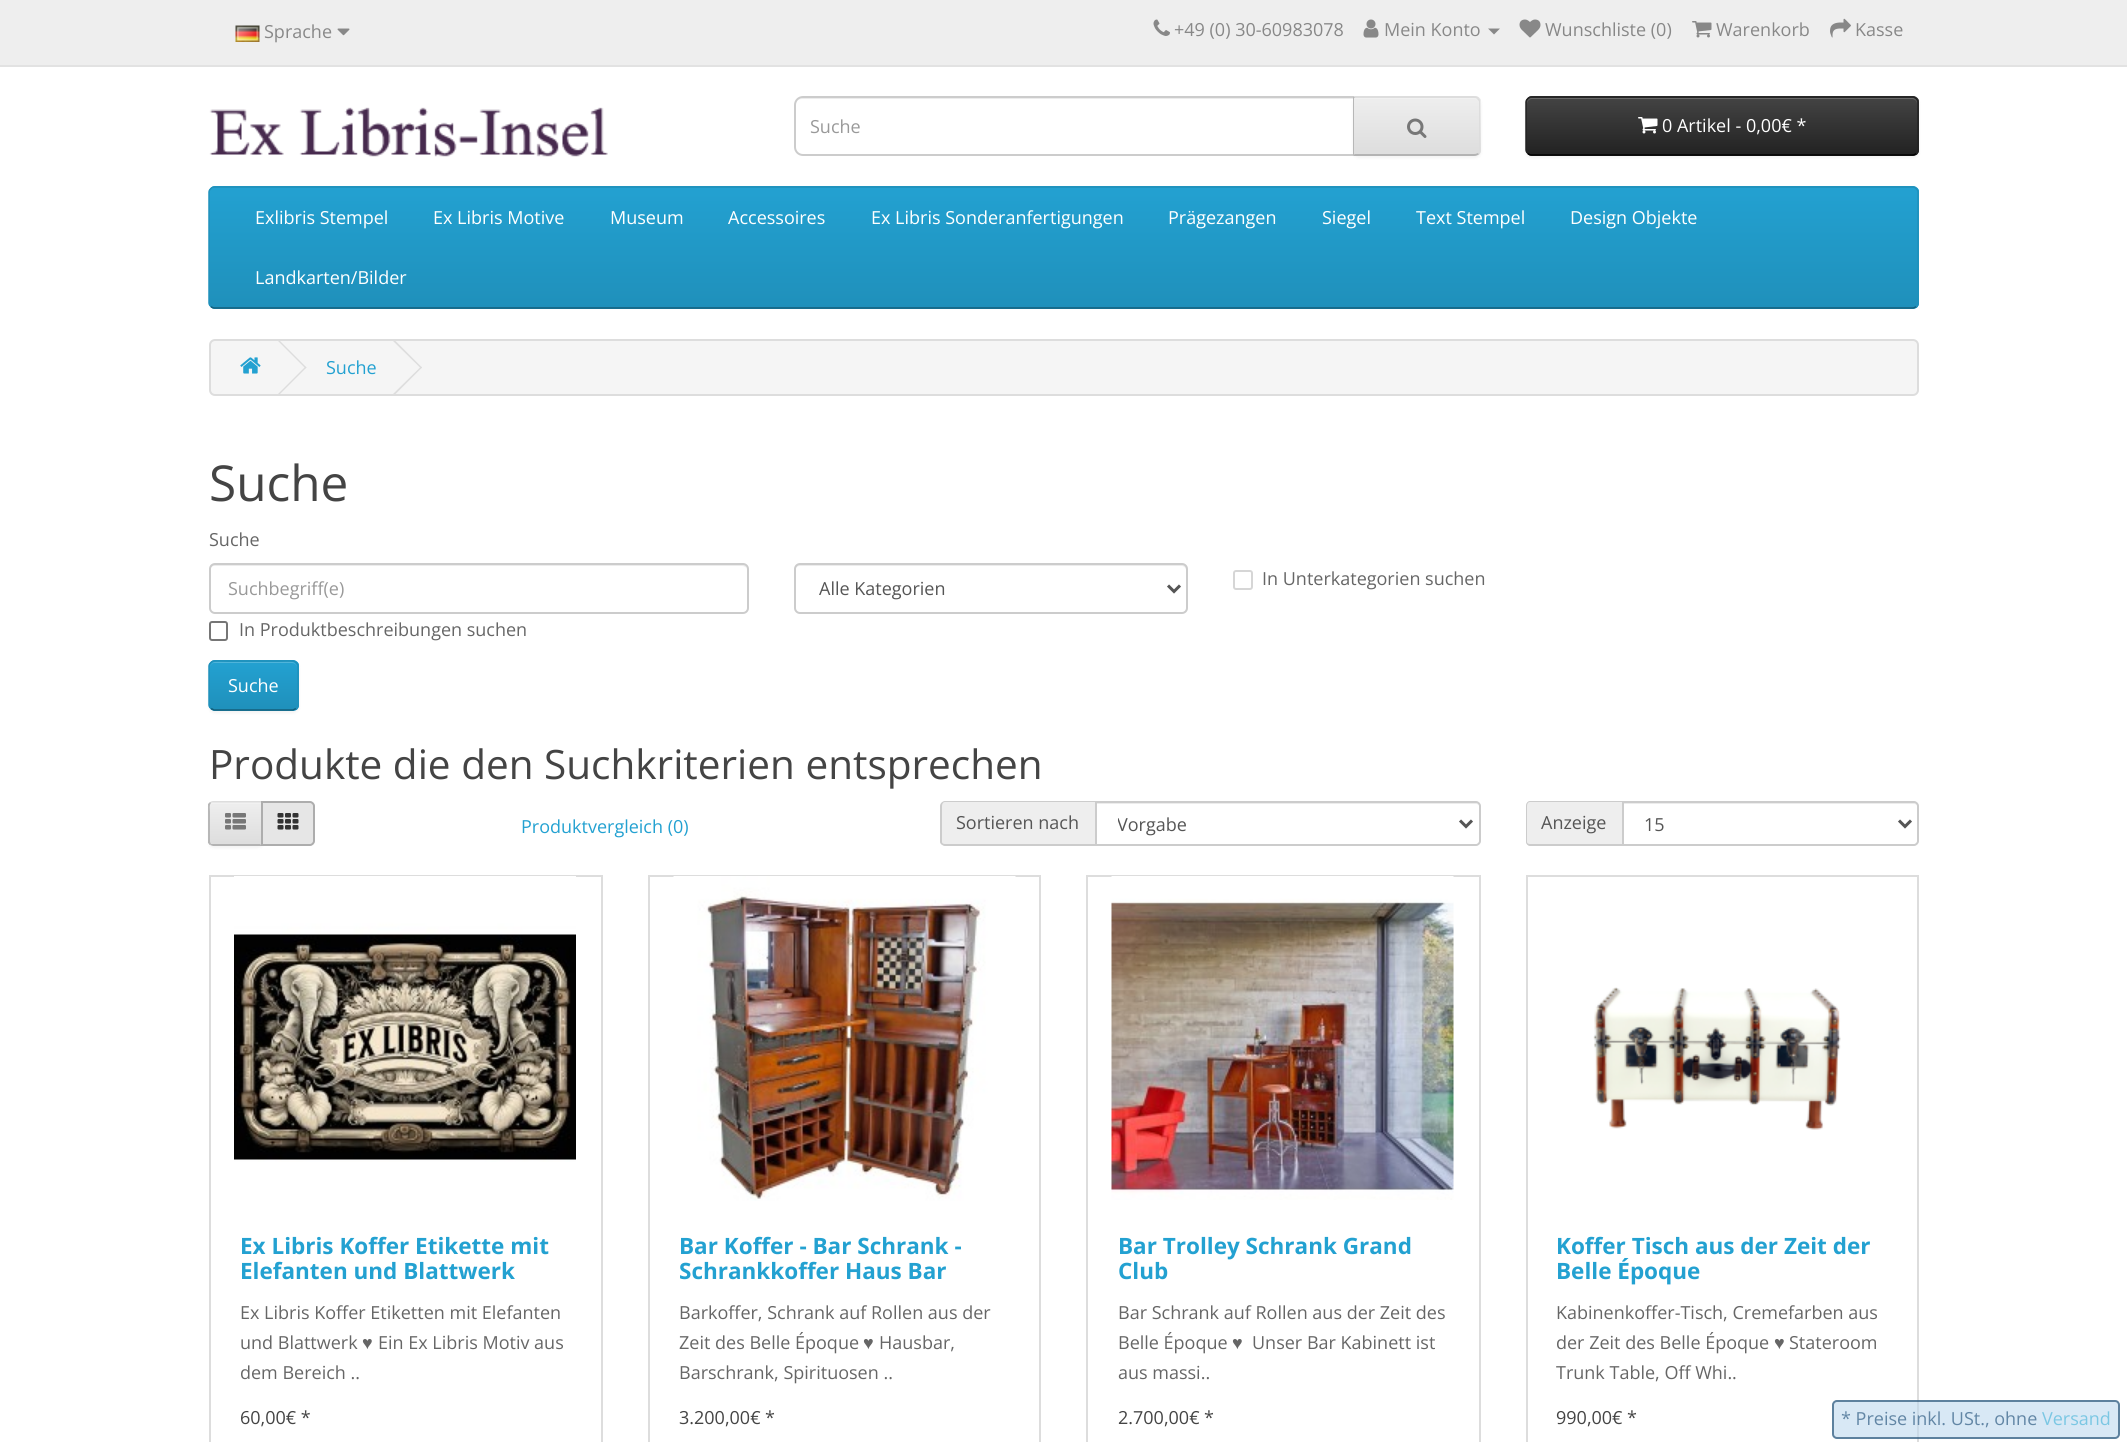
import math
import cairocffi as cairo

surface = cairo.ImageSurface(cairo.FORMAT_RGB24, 2127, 1442)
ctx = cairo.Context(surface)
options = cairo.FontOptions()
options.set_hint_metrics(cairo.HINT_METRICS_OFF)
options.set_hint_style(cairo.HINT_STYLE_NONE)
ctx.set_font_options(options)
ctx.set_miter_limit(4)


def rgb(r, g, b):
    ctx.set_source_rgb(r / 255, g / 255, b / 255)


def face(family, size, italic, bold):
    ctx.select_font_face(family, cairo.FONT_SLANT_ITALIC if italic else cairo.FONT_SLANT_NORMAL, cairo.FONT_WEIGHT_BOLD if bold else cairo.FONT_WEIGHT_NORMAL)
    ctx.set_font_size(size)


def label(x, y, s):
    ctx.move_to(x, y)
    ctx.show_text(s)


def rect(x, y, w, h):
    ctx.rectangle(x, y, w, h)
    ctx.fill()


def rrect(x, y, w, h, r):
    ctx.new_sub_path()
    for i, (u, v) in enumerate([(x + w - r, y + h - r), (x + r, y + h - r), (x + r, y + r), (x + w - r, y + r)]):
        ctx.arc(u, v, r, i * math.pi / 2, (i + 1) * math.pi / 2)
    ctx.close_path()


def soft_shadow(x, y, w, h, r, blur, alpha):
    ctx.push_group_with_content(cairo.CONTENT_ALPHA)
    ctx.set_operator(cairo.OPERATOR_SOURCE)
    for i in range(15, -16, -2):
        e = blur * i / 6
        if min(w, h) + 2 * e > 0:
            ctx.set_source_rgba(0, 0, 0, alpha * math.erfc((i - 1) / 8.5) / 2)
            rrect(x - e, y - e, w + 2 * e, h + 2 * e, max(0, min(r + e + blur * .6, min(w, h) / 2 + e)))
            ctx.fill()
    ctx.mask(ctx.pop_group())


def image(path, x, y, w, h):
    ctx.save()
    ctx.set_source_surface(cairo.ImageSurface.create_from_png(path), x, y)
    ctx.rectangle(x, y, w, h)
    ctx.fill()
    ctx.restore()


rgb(255, 255, 255)
ctx.paint()
rgb(238, 238, 238)
rect(0, 0, 2127, 65)
rgb(226, 226, 226)
rect(0, 65, 2127, 2)
image('image0.png', 235, 25, 25, 17)
face('Open Sans', 18, 0, 0)
rgb(136, 136, 136)
label(264, 38, 'Sprache')
image('image1.png', 337, 28, 13, 8)
image('image2.png', 1153, 19, 17, 17)
label(1174, 36, '+49 (0) 30-60983078')
image('image3.png', 1363, 19, 16, 19)
label(1384, 36, 'Mein Konto')
ctx.new_path()
ctx.move_to(1488, 28.5)
ctx.line_to(1500, 28.5)
ctx.line_to(1494, 34.5)
ctx.close_path()
ctx.fill()
image('image4.png', 1519, 19, 22, 19)
label(1545, 36, 'Wunschliste (0)')
image('image5.png', 1692, 21, 20, 17)
label(1716, 36, 'Warenkorb')
image('image6.png', 1830, 18, 21, 20)
label(1855, 36, 'Kasse')
image('image7.png', 209, 107, 399, 50)
rgb(236, 236, 236)
ctx.new_path()
ctx.move_to(802, 99)
ctx.line_to(1353, 99)
ctx.line_to(1353, 98)
ctx.line_to(803, 98)
ctx.curve_to(799, 98, 795, 102, 795, 106)
ctx.curve_to(795, 102, 798, 99, 802, 99)
ctx.close_path()
ctx.fill()
ctx.new_path()
ctx.move_to(803, 97)
ctx.line_to(1354, 97)
ctx.line_to(1354, 155)
ctx.line_to(803, 155)
ctx.curve_to(798.5, 155, 795, 151.5, 795, 147)
ctx.line_to(795, 105)
ctx.curve_to(795, 100.5, 798.5, 97, 803, 97)
ctx.close_path()
rgb(204, 204, 204)
ctx.stroke()
rgb(153, 153, 153)
label(810, 133, 'Suche')
rgb(0, 0, 0)
soft_shadow(1353, 98, 128, 60, 6, 1.5, 0.05)
rgb(231, 231, 231)
ctx.new_path()
ctx.move_to(1353, 96)
ctx.line_to(1475, 96)
ctx.curve_to(1478.5, 96, 1481, 98.5, 1481, 102)
ctx.line_to(1481, 150)
ctx.curve_to(1481, 153.5, 1478.5, 156, 1475, 156)
ctx.line_to(1353, 156)
ctx.close_path()
ctx.fill()
ctx.save()
ctx.new_path()
ctx.move_to(1353, 96)
ctx.line_to(1475, 96)
ctx.curve_to(1478.5, 96, 1481, 98.5, 1481, 102)
ctx.line_to(1481, 150)
ctx.curve_to(1481, 153.5, 1478.5, 156, 1475, 156)
ctx.line_to(1353, 156)
ctx.close_path()
ctx.clip()
gradient = cairo.LinearGradient(1417, 98, 1417, 155)
gradient.add_color_stop_rgba(0, 0.933, 0.933, 0.933, 1)
gradient.add_color_stop_rgba(1, 0.867, 0.867, 0.867, 1)
ctx.set_source(gradient)
rect(1354, 98, 127, 57)
ctx.restore()
rgb(241, 241, 241)
ctx.new_path()
ctx.move_to(1355, 98)
ctx.line_to(1355, 99)
ctx.line_to(1474, 99)
ctx.curve_to(1477, 99, 1479, 101, 1479, 104)
ctx.curve_to(1479, 101, 1477, 98, 1474, 98)
ctx.close_path()
ctx.fill()
rgb(221, 221, 221)
ctx.new_path()
ctx.move_to(1353, 96)
ctx.line_to(1355, 98)
ctx.line_to(1474, 98)
ctx.curve_to(1475, 98, 1477, 98, 1477, 99)
ctx.line_to(1479, 98)
ctx.curve_to(1478, 97, 1476, 96, 1474, 96)
ctx.close_path()
ctx.fill()
ctx.new_path()
ctx.move_to(1479, 98)
ctx.curve_to(1480, 99, 1480, 101, 1480, 102)
ctx.line_to(1480, 150)
ctx.curve_to(1480, 151, 1480, 153, 1479, 154)
ctx.line_to(1477, 153)
ctx.curve_to(1478, 152, 1479, 151, 1479, 150)
ctx.line_to(1479, 102)
ctx.curve_to(1479, 101, 1478, 100, 1477, 99)
ctx.close_path()
ctx.fill()
rgb(179, 179, 179)
ctx.new_path()
ctx.move_to(1474, 156)
ctx.curve_to(1476, 156, 1478, 155, 1479, 154)
ctx.line_to(1477, 153)
ctx.curve_to(1477, 154, 1475, 154, 1474, 154)
ctx.line_to(1355, 154)
ctx.line_to(1353, 156)
ctx.close_path()
ctx.fill()
rgb(183, 183, 183)
ctx.new_path()
ctx.move_to(1353, 96)
ctx.line_to(1353, 156)
ctx.line_to(1355, 154)
ctx.line_to(1354, 154)
ctx.line_to(1354, 98)
ctx.line_to(1355, 98)
ctx.close_path()
ctx.fill()
image('image8.png', 1407, 118, 20, 20)
rgb(0, 0, 0)
soft_shadow(1526, 98, 393, 60, 6, 1.5, 0.05)
rgb(54, 54, 54)
rrect(1526, 96, 393, 60, 6)
ctx.fill()
ctx.save()
rrect(1526, 96, 393, 60, 6)
ctx.clip()
gradient = cairo.LinearGradient(1722, 97, 1722, 155)
gradient.add_color_stop_rgba(0, 0.267, 0.267, 0.267, 1)
gradient.add_color_stop_rgba(1, 0.133, 0.133, 0.133, 1)
ctx.set_source(gradient)
rect(1526, 98, 393, 57)
ctx.restore()
rgb(105, 105, 105)
ctx.new_path()
ctx.move_to(1532, 99)
ctx.line_to(1912, 99)
ctx.curve_to(1915, 99, 1917, 101, 1917, 104)
ctx.line_to(1917, 103)
ctx.curve_to(1917, 100, 1915, 98, 1912, 98)
ctx.line_to(1532, 98)
ctx.curve_to(1529, 98, 1527, 100, 1527, 103)
ctx.line_to(1527, 104)
ctx.curve_to(1527, 101, 1529, 99, 1532, 99)
ctx.close_path()
ctx.fill()
ctx.new_path()
ctx.move_to(1916, 153.5)
ctx.curve_to(1915, 154.5, 1914, 155, 1912.5, 155)
ctx.line_to(1531.5, 155)
ctx.curve_to(1530, 155, 1529, 154.5, 1528, 153.5)
rgb(0, 0, 0)
ctx.set_line_width(1.5)
ctx.stroke()
ctx.new_path()
ctx.move_to(1528, 153.5)
ctx.curve_to(1527, 152.5, 1526, 151.5, 1526, 150)
ctx.line_to(1526, 102)
ctx.curve_to(1526, 100.5, 1527, 99.5, 1528, 98.5)
ctx.curve_to(1529, 97.5, 1530, 97, 1531.5, 97)
ctx.line_to(1912.5, 97)
ctx.curve_to(1914, 97, 1915, 97.5, 1916, 98.5)
ctx.curve_to(1917, 99.5, 1918, 100.5, 1918, 102)
ctx.line_to(1918, 150)
ctx.curve_to(1918, 151.5, 1917, 152.5, 1916, 153.5)
rgb(34, 34, 34)
ctx.stroke()
image('image9.png', 1638, 117, 20, 17)
rgb(255, 255, 255)
label(1662, 132, '0 Artikel - 0,00€ *')
rgb(34, 154, 200)
rrect(209, 186, 1710, 123, 6)
ctx.fill()
ctx.save()
rrect(209, 186, 1710, 123, 6)
ctx.clip()
gradient = cairo.LinearGradient(1064, 187, 1064, 308)
gradient.add_color_stop_rgba(0, 0.137, 0.631, 0.82, 1)
gradient.add_color_stop_rgba(1, 0.122, 0.565, 0.733, 1)
ctx.set_source(gradient)
rect(209, 188, 1710, 120)
ctx.restore()
ctx.new_path()
ctx.move_to(1916, 306.5)
ctx.curve_to(1915, 307.5, 1914, 308, 1912.5, 308)
ctx.line_to(214.5, 308)
ctx.curve_to(213, 308, 212, 307.5, 211, 306.5)
rgb(20, 94, 122)
ctx.stroke()
ctx.new_path()
ctx.move_to(211, 306.5)
ctx.curve_to(210, 305.5, 209, 304.5, 209, 303)
ctx.line_to(209, 192)
ctx.curve_to(209, 190.5, 210, 189.5, 211, 188.5)
ctx.curve_to(212, 187.5, 213, 187, 214.5, 187)
ctx.line_to(1912.5, 187)
ctx.curve_to(1914, 187, 1915, 187.5, 1916, 188.5)
ctx.curve_to(1917, 189.5, 1918, 190.5, 1918, 192)
ctx.line_to(1918, 303)
ctx.curve_to(1918, 304.5, 1917, 305.5, 1916, 306.5)
rgb(31, 144, 187)
ctx.stroke()
rgb(255, 255, 255)
label(255, 224, 'Exlibris Stempel')
label(433, 224, 'Ex Libris Motive')
label(610, 224, 'Museum')
label(728, 224, 'Accessoires')
label(871, 224, 'Ex Libris Sonderanfertigungen')
label(1168, 224, 'Prägezangen')
label(1322, 224, 'Siegel')
label(1416, 224, 'Text Stempel')
label(1570, 224, 'Design Objekte')
label(255, 284, 'Landkarten/Bilder')
rgb(245, 245, 245)
rrect(210, 340, 1708, 55, 5)
ctx.fill_preserve()
rgb(221, 221, 221)
ctx.set_line_width(2)
ctx.stroke()
image('image10.png', 240, 357, 21, 17)
ctx.new_path()
ctx.move_to(278, 341)
ctx.line_to(279, 340)
ctx.line_to(306.5, 367.5)
ctx.line_to(305.5, 368.5)
ctx.close_path()
ctx.fill()
ctx.new_path()
ctx.move_to(278, 394)
ctx.line_to(305.5, 366.5)
ctx.line_to(306.5, 367.5)
ctx.line_to(279, 395)
ctx.close_path()
ctx.fill()
rgb(35, 161, 209)
label(326, 374, 'Suche')
rgb(221, 221, 221)
ctx.new_path()
ctx.move_to(393, 341)
ctx.line_to(394.5, 340)
ctx.line_to(422, 367.5)
ctx.line_to(421, 368.5)
ctx.close_path()
ctx.fill()
ctx.new_path()
ctx.move_to(393, 394)
ctx.line_to(421, 366.5)
ctx.line_to(422, 367.5)
ctx.line_to(394.5, 395)
ctx.close_path()
ctx.fill()
face('Open Sans', 49.5, 0, 0)
rgb(68, 68, 68)
label(209, 501, 'Suche')
face('Open Sans', 18, 0, 0)
rgb(102, 102, 102)
label(209, 546, 'Suche')
rgb(236, 236, 236)
ctx.new_path()
ctx.move_to(214, 566)
ctx.line_to(742, 566)
ctx.curve_to(745, 566, 747, 568, 747, 570)
ctx.curve_to(747, 567, 745, 564, 742, 564)
ctx.line_to(215, 564)
ctx.curve_to(212, 564, 210, 567, 210, 570)
ctx.curve_to(210, 568, 212, 566, 214, 566)
ctx.close_path()
ctx.fill()
rrect(210, 564, 538, 49, 5)
rgb(204, 204, 204)
ctx.stroke()
rgb(153, 153, 153)
label(228, 595, 'Suchbegriff(e)')
rgb(236, 236, 236)
ctx.new_path()
ctx.move_to(800, 566)
ctx.line_to(1182, 566)
ctx.curve_to(1184, 566, 1186, 568, 1186, 570)
ctx.line_to(1186, 610)
ctx.curve_to(1187, 609, 1187, 608, 1187, 607)
ctx.line_to(1187, 569)
ctx.curve_to(1187, 566, 1185, 564, 1182, 564)
ctx.line_to(800, 564)
ctx.curve_to(797, 564, 795, 566, 795, 569)
ctx.line_to(795, 570)
ctx.curve_to(795, 568, 797, 566, 800, 566)
ctx.close_path()
ctx.fill()
rrect(795, 564, 392, 49, 5)
rgb(204, 204, 204)
ctx.stroke()
ctx.new_path()
ctx.move_to(1168, 585.5)
ctx.line_to(1174, 591.5)
ctx.line_to(1180, 585.5)
rgb(85, 85, 85)
ctx.set_line_width(3)
ctx.stroke()
label(819, 595, 'Alle Kategorien')
rrect(1234, 571, 18, 18, 2)
rgb(214, 214, 214)
ctx.set_line_width(2)
ctx.stroke()
rgb(102, 102, 102)
label(1262, 585, 'In Unterkategorien suchen')
rrect(210, 622, 17, 18, 2)
rgb(118, 118, 118)
ctx.stroke()
rgb(102, 102, 102)
label(239, 636, 'In Produktbeschreibungen suchen')
rgb(0, 0, 0)
soft_shadow(209, 662, 90, 51, 6, 1.5, 0.05)
rgb(34, 154, 200)
rrect(209, 660, 90, 51, 6)
ctx.fill()
ctx.save()
rrect(209, 660, 90, 51, 6)
ctx.clip()
gradient = cairo.LinearGradient(254, 662, 254, 710)
gradient.add_color_stop_rgba(0, 0.137, 0.631, 0.82, 1)
gradient.add_color_stop_rgba(1, 0.122, 0.565, 0.733, 1)
ctx.set_source(gradient)
rect(209, 662, 90, 48)
ctx.restore()
rgb(79, 180, 218)
ctx.new_path()
ctx.move_to(214, 663)
ctx.line_to(292, 663)
ctx.curve_to(295, 663, 297, 665, 297, 668)
ctx.curve_to(297, 659, 285, 662, 279, 662)
ctx.line_to(228, 662)
ctx.curve_to(222, 662, 210, 659, 210, 668)
ctx.curve_to(210, 665, 212, 663, 214, 663)
ctx.close_path()
ctx.fill()
ctx.new_path()
ctx.move_to(296, 708.5)
ctx.line_to(293, 710)
ctx.line_to(214, 710)
ctx.line_to(211, 708.5)
rgb(20, 94, 122)
ctx.set_line_width(1.5)
ctx.stroke()
ctx.new_path()
ctx.move_to(211, 708.5)
ctx.curve_to(210, 707.5, 209, 706.5, 209, 705)
ctx.line_to(209, 666)
ctx.curve_to(209, 664.5, 210, 663.5, 211, 662.5)
ctx.curve_to(212, 661.5, 213, 661, 214.5, 661)
ctx.line_to(292.5, 661)
ctx.curve_to(294, 661, 295, 661.5, 296, 662.5)
ctx.curve_to(297, 663.5, 298, 664.5, 298, 666)
ctx.line_to(298, 705)
ctx.curve_to(298, 706.5, 297, 707.5, 296, 708.5)
rgb(31, 144, 187)
ctx.stroke()
rgb(255, 255, 255)
label(228, 692, 'Suche')
face('Open Sans', 40.5, 0, 0)
rgb(68, 68, 68)
label(209, 779, 'Produkte die den Suchkriterien entsprechen')
rgb(0, 0, 0)
soft_shadow(209, 803, 54, 45, 5, 1.5, 0.05)
rgb(231, 231, 231)
ctx.new_path()
ctx.move_to(214, 801)
ctx.line_to(263, 801)
ctx.line_to(263, 846)
ctx.line_to(214, 846)
ctx.curve_to(211, 846, 209, 844, 209, 841)
ctx.line_to(209, 806)
ctx.curve_to(209, 803, 211, 801, 214, 801)
ctx.close_path()
ctx.fill()
gradient = cairo.LinearGradient(236, 803, 236, 845)
gradient.add_color_stop_rgba(0, 0.933, 0.933, 0.933, 1)
gradient.add_color_stop_rgba(1, 0.867, 0.867, 0.867, 1)
ctx.set_source(gradient)
rect(209, 803, 52, 42)
rgb(241, 241, 241)
ctx.new_path()
ctx.move_to(213, 804)
ctx.line_to(261, 804)
ctx.line_to(261, 803)
ctx.line_to(213, 803)
ctx.curve_to(211, 803, 210, 804, 210, 806)
ctx.line_to(210, 807)
ctx.curve_to(210, 805, 211, 804, 213, 804)
ctx.close_path()
ctx.fill()
rgb(221, 221, 221)
ctx.new_path()
ctx.move_to(213, 801)
ctx.line_to(210, 802)
ctx.line_to(211, 803)
ctx.line_to(212, 802)
ctx.line_to(261, 802)
ctx.line_to(262, 801)
ctx.close_path()
ctx.fill()
rgb(179, 179, 179)
ctx.new_path()
ctx.move_to(213, 846)
ctx.line_to(262, 846)
ctx.line_to(260, 844)
ctx.line_to(213, 844)
ctx.line_to(211, 844)
ctx.line_to(210, 845)
ctx.close_path()
ctx.fill()
rgb(183, 183, 183)
ctx.new_path()
ctx.move_to(208, 804)
ctx.line_to(210, 802)
ctx.line_to(211, 803)
ctx.curve_to(209, 805, 210, 810, 210, 812)
ctx.line_to(210, 842)
ctx.line_to(211, 844)
ctx.line_to(210, 845)
ctx.line_to(208, 843)
ctx.close_path()
ctx.fill()
image('image11.png', 225, 813, 21, 17)
rgb(230, 230, 230)
ctx.new_path()
ctx.move_to(262, 802)
ctx.line_to(310, 802)
ctx.curve_to(312, 802, 314, 804, 314, 806)
ctx.line_to(314, 841)
ctx.curve_to(314, 843, 312, 845, 310, 845)
ctx.line_to(262, 845)
ctx.close_path()
ctx.fill_preserve()
rgb(173, 173, 173)
ctx.set_line_width(2)
ctx.stroke()
image('image12.png', 277, 813, 22, 17)
face('Open Sans', 18, 0, 0)
rgb(35, 161, 209)
label(521, 833, 'Produktvergleich (0)')
rgb(238, 238, 238)
ctx.new_path()
ctx.move_to(946, 801)
ctx.line_to(1095, 801)
ctx.line_to(1095, 846)
ctx.line_to(946, 846)
ctx.curve_to(943, 846, 941, 844, 941, 841)
ctx.line_to(941, 806)
ctx.curve_to(941, 803, 943, 801, 946, 801)
ctx.close_path()
ctx.fill()
rgb(204, 204, 204)
ctx.set_fill_rule(cairo.FILL_RULE_EVEN_ODD)
ctx.new_path()
ctx.move_to(945, 801)
ctx.line_to(1095, 801)
ctx.line_to(1095, 846)
ctx.line_to(945, 846)
ctx.curve_to(943, 846, 940, 844, 940, 842)
ctx.line_to(940, 806)
ctx.curve_to(940, 803, 943, 801, 945, 801)
ctx.close_path()
ctx.move_to(945, 802)
ctx.line_to(1095, 802)
ctx.line_to(1095, 844)
ctx.line_to(945, 844)
ctx.curve_to(943, 844, 942, 843, 942, 842)
ctx.line_to(942, 806)
ctx.curve_to(942, 804, 943, 802, 945, 802)
ctx.close_path()
ctx.fill()
rgb(85, 85, 85)
label(956, 829, 'Sortieren nach')
rgb(236, 236, 236)
ctx.set_fill_rule(cairo.FILL_RULE_WINDING)
ctx.new_path()
ctx.move_to(1097, 803)
ctx.line_to(1097, 804)
ctx.line_to(1476, 804)
ctx.curve_to(1478, 804, 1479, 805, 1479, 807)
ctx.curve_to(1479, 805, 1478, 803, 1476, 803)
ctx.close_path()
ctx.fill()
ctx.new_path()
ctx.move_to(1096, 802)
ctx.line_to(1476, 802)
ctx.curve_to(1478, 802, 1480, 804, 1480, 806)
ctx.line_to(1480, 841)
ctx.curve_to(1480, 843, 1478, 845, 1476, 845)
ctx.line_to(1096, 845)
ctx.close_path()
rgb(204, 204, 204)
ctx.stroke()
ctx.new_path()
ctx.move_to(1460, 820.5)
ctx.line_to(1466, 826.5)
ctx.line_to(1472, 820.5)
rgb(85, 85, 85)
ctx.set_line_width(3)
ctx.stroke()
ctx.save()
ctx.rectangle(1118, 810, 322, 29)
ctx.clip()
label(1117, 831, 'Vorgabe')
ctx.restore()
rgb(238, 238, 238)
ctx.new_path()
ctx.move_to(1531, 801)
ctx.line_to(1622, 801)
ctx.line_to(1622, 846)
ctx.line_to(1531, 846)
ctx.curve_to(1528, 846, 1526, 844, 1526, 841)
ctx.line_to(1526, 806)
ctx.curve_to(1526, 803, 1528, 801, 1531, 801)
ctx.close_path()
ctx.fill()
rgb(204, 204, 204)
ctx.set_fill_rule(cairo.FILL_RULE_EVEN_ODD)
ctx.new_path()
ctx.move_to(1530, 801)
ctx.line_to(1622, 801)
ctx.line_to(1622, 846)
ctx.line_to(1530, 846)
ctx.curve_to(1528, 846, 1526, 844, 1526, 842)
ctx.line_to(1526, 806)
ctx.curve_to(1526, 803, 1528, 801, 1530, 801)
ctx.close_path()
ctx.move_to(1530, 802)
ctx.line_to(1622, 802)
ctx.line_to(1622, 844)
ctx.line_to(1530, 844)
ctx.curve_to(1528, 844, 1527, 843, 1527, 842)
ctx.line_to(1527, 806)
ctx.curve_to(1527, 804, 1528, 802, 1530, 802)
ctx.close_path()
ctx.fill()
rgb(85, 85, 85)
label(1541, 829, 'Anzeige')
rgb(236, 236, 236)
ctx.set_fill_rule(cairo.FILL_RULE_WINDING)
ctx.new_path()
ctx.move_to(1623, 804)
ctx.line_to(1914, 804)
ctx.curve_to(1916, 804, 1917, 805, 1917, 807)
ctx.curve_to(1917, 805, 1916, 803, 1914, 803)
ctx.line_to(1623, 803)
ctx.close_path()
ctx.fill()
ctx.new_path()
ctx.move_to(1623, 802)
ctx.line_to(1914, 802)
ctx.curve_to(1916, 802, 1918, 804, 1918, 806)
ctx.line_to(1918, 841)
ctx.curve_to(1918, 843, 1916, 845, 1914, 845)
ctx.line_to(1623, 845)
ctx.close_path()
rgb(204, 204, 204)
ctx.set_line_width(2)
ctx.stroke()
ctx.new_path()
ctx.move_to(1899, 820.5)
ctx.line_to(1905, 826.5)
ctx.line_to(1911, 820.5)
rgb(85, 85, 85)
ctx.set_line_width(3)
ctx.stroke()
label(1644, 831, '15')
ctx.rectangle(210, 876, 392, 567)
rgb(221, 221, 221)
ctx.set_line_width(2)
ctx.stroke()
image('image13.png', 234, 876, 342, 286)
face('Open Sans', 22.5, 0, 1)
rgb(35, 161, 209)
label(240, 1254, 'Ex Libris Koffer Etikette mit')
label(240, 1279, 'Elefanten und Blattwerk')
face('Open Sans', 18, 0, 0)
rgb(102, 102, 102)
label(240, 1319, 'Ex Libris Koffer Etiketten mit Elefanten')
label(240, 1349, 'und Blattwerk')
face('Liberation Sans', 18, 0, 0)
label(362, 1349, '♥')
face('Open Sans', 18, 0, 0)
label(378, 1349, 'Ein Ex Libris Motiv aus')
label(240, 1379, 'dem Bereich ..')
rgb(68, 68, 68)
label(240, 1424, '60,00€ *')
ctx.rectangle(649, 876, 391, 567)
rgb(221, 221, 221)
ctx.stroke()
image('image14.png', 673, 876, 343, 325)
face('Open Sans', 22.5, 0, 1)
rgb(35, 161, 209)
label(679, 1254, 'Bar Koffer - Bar Schrank -')
label(679, 1279, 'Schrankkoffer Haus Bar')
face('Open Sans', 18, 0, 0)
rgb(102, 102, 102)
label(679, 1319, 'Barkoffer, Schrank auf Rollen aus der')
label(679, 1349, 'Zeit des Belle Époque')
face('Liberation Sans', 18, 0, 0)
label(863, 1349, '♥')
face('Open Sans', 18, 0, 0)
label(879, 1349, 'Hausbar,')
label(679, 1379, 'Barschrank, Spirituosen ..')
rgb(68, 68, 68)
label(679, 1424, '3.200,00€ *')
ctx.rectangle(1087, 876, 393, 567)
rgb(221, 221, 221)
ctx.stroke()
image('image15.png', 1111, 876, 343, 324)
face('Open Sans', 22.5, 0, 1)
rgb(35, 161, 209)
label(1118, 1254, 'Bar Trolley Schrank Grand')
label(1118, 1279, 'Club')
face('Open Sans', 18, 0, 0)
rgb(102, 102, 102)
label(1118, 1319, 'Bar Schrank auf Rollen aus der Zeit des')
label(1118, 1349, 'Belle Époque')
face('Liberation Sans', 18, 0, 0)
label(1232, 1349, '♥')
face('Open Sans', 18, 0, 0)
label(1252, 1349, 'Unser Bar Kabinett ist')
label(1118, 1379, 'aus massi..')
rgb(68, 68, 68)
label(1118, 1424, '2.700,00€ *')
ctx.rectangle(1527, 876, 391, 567)
rgb(221, 221, 221)
ctx.stroke()
image('image16.png', 1593, 987, 248, 143)
face('Open Sans', 22.5, 0, 1)
rgb(35, 161, 209)
label(1556, 1254, 'Koffer Tisch aus der Zeit der')
label(1556, 1279, 'Belle Époque')
face('Open Sans', 18, 0, 0)
rgb(102, 102, 102)
label(1556, 1319, 'Kabinenkoffer-Tisch, Cremefarben aus')
label(1556, 1349, 'der Zeit des Belle Époque')
face('Liberation Sans', 18, 0, 0)
label(1774, 1349, '♥')
face('Open Sans', 18, 0, 0)
label(1789, 1349, 'Stateroom')
label(1556, 1379, 'Trunk Table, Off Whi..')
rgb(68, 68, 68)
label(1556, 1424, '990,00€ *')
ctx.set_source_rgba(0.745, 0.847, 0.937, 0.6)
rrect(1832, 1400, 288, 39, 5)
ctx.fill()
rrect(1833, 1401, 286, 37, 4)
ctx.set_source_rgba(0.047, 0.235, 0.396, 0.6)
ctx.stroke()
rgb(98, 134, 165)
label(1841, 1425, '* Preise inkl. USt., ohne')
rgb(123, 199, 227)
label(2042, 1425, 'Versand')
surface.write_to_png('render.png')
